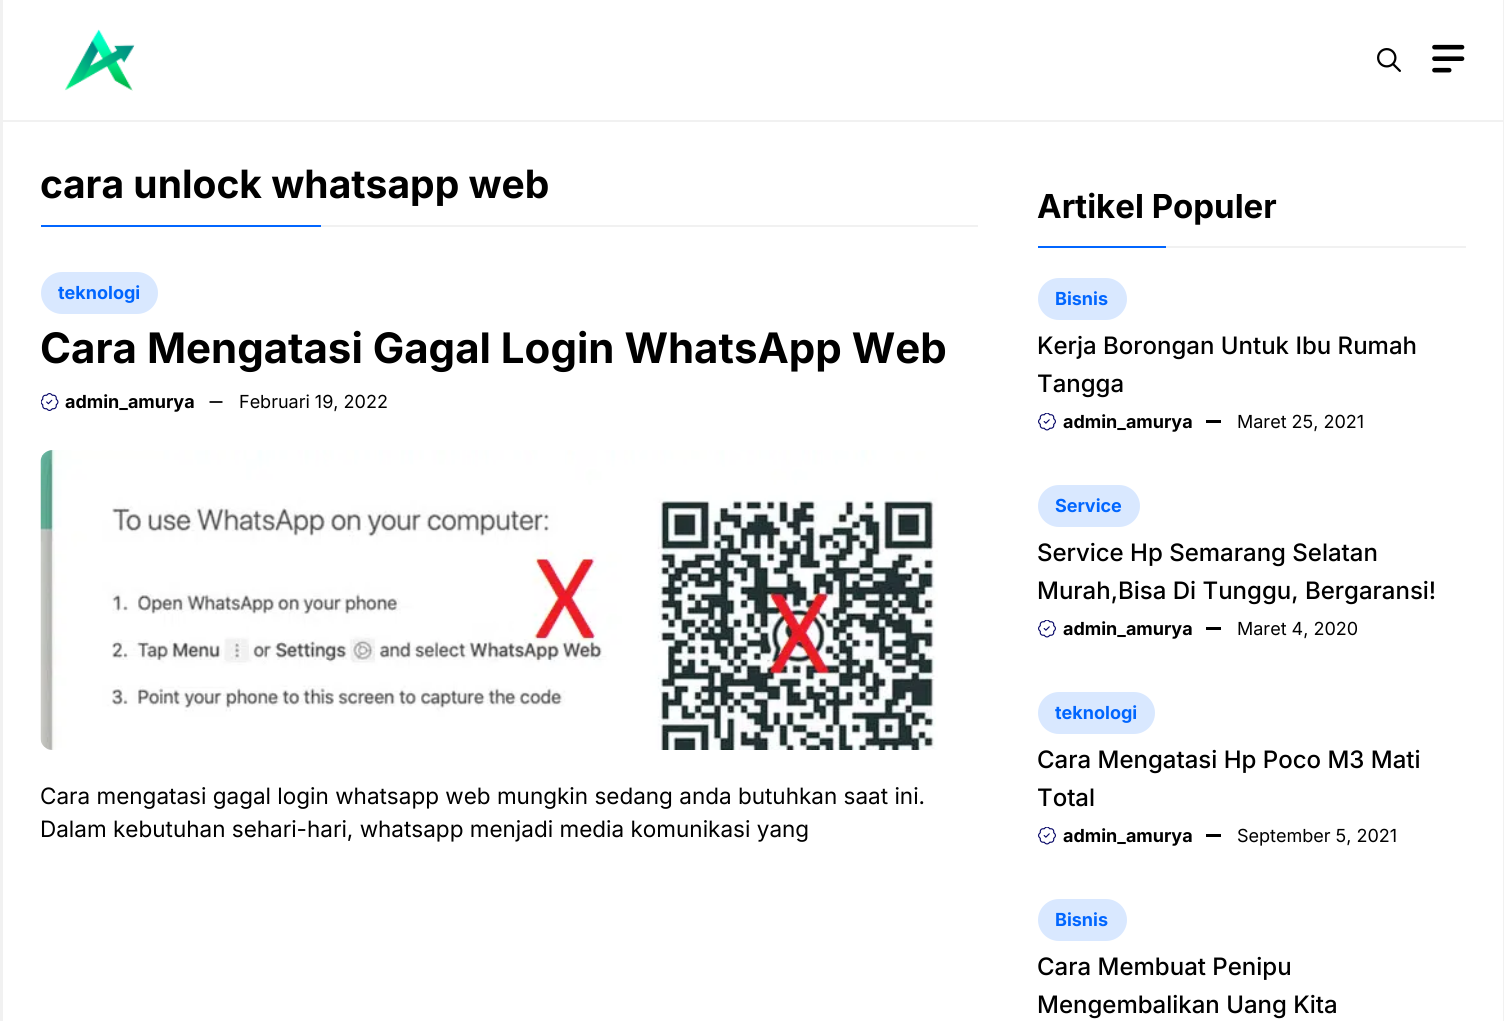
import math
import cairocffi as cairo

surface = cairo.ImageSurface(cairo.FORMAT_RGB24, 1504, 1021)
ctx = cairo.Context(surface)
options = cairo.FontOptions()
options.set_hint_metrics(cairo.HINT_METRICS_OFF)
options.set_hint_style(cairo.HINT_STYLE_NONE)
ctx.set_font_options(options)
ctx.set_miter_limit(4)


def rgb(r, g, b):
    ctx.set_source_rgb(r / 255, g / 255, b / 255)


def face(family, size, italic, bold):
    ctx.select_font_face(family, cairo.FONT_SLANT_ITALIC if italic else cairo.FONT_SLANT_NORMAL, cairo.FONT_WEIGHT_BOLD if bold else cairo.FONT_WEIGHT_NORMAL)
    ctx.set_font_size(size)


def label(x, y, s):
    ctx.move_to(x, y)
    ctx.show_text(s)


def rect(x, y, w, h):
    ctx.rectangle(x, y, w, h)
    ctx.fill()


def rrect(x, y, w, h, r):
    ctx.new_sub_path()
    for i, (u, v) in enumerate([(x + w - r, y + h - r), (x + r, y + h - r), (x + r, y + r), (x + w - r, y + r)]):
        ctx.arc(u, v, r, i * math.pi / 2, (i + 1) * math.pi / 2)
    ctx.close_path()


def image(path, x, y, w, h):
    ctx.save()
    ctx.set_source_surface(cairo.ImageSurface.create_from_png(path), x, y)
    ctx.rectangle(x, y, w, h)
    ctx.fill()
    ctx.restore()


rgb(241, 241, 241)
ctx.paint()
rgb(255, 255, 255)
rect(3, 0, 1500, 120)
image('image0.png', 64, 29, 71, 62)
image('image1.png', 1377, 48, 24, 24)
image('image2.png', 1432, 44, 33, 29)
rect(3, 122, 1500, 899)
rgb(241, 241, 241)
rect(321, 225, 657, 2)
face('Inter', 39, 0, 1)
rgb(0, 0, 0)
label(40, 198, 'cara unlock whatsapp web')
rgb(1, 102, 255)
rect(41, 225, 280, 2)
face('Inter', 18, 0, 1)
label(58, 299, 'teknologi')
ctx.set_source_rgba(0.004, 0.4, 1, 0.15)
rrect(41, 272, 117, 42, 21)
ctx.fill()
face('Inter', 42, 0, 1)
rgb(0, 0, 0)
label(40, 363, 'Cara Mengatasi Gagal Login WhatsApp Web')
image('image3.png', 41, 393, 18, 18)
face('Inter', 18, 0, 1)
label(65, 408, 'admin_amurya')
image('image4.png', 209, 401, 14, 2)
face('Inter', 18, 0, 0)
label(239, 408, 'Februari 19, 2022')
image('image5.png', 40, 450, 898, 300)
face('Inter', 22.5, 0, 0)
label(40, 804, 'Cara mengatasi gagal login whatsapp web mungkin sedang anda butuhkan saat ini.')
label(40, 837, 'Dalam kebutuhan sehari-hari, whatsapp menjadi media komunikasi yang')
rgb(241, 241, 241)
rect(1166, 246, 300, 2)
face('Inter', 33, 0, 1)
rgb(0, 0, 0)
label(1037, 218, 'Artikel Populer')
rgb(1, 102, 255)
rect(1038, 246, 128, 2)
face('Inter', 18, 0, 1)
label(1055, 305, 'Bisnis')
ctx.set_source_rgba(0.004, 0.4, 1, 0.15)
rrect(1038, 278, 89, 42, 21)
ctx.fill()
face('Inter Medium', 24, 0, 0)
rgb(0, 0, 0)
label(1037, 354, 'Kerja Borongan Untuk Ibu Rumah')
label(1037, 392, 'Tangga')
image('image6.png', 1038, 413, 18, 18)
face('Inter', 18, 0, 1)
label(1063, 428, 'admin_amurya')
rect(1206, 420, 15, 3)
face('Inter', 18, 0, 0)
label(1237, 428, 'Maret 25, 2021')
face('Inter', 18, 0, 1)
rgb(1, 102, 255)
label(1055, 512, 'Service')
ctx.set_source_rgba(0.004, 0.4, 1, 0.15)
rrect(1038, 485, 102, 42, 21)
ctx.fill()
face('Inter Medium', 24, 0, 0)
rgb(0, 0, 0)
label(1037, 561, 'Service Hp Semarang Selatan')
label(1037, 599, 'Murah,Bisa Di Tunggu, Bergaransi!')
image('image6.png', 1038, 620, 18, 18)
face('Inter', 18, 0, 1)
label(1063, 635, 'admin_amurya')
rect(1206, 627, 15, 3)
face('Inter', 18, 0, 0)
label(1237, 635, 'Maret 4, 2020')
face('Inter', 18, 0, 1)
rgb(1, 102, 255)
label(1055, 719, 'teknologi')
ctx.set_source_rgba(0.004, 0.4, 1, 0.15)
rrect(1038, 692, 117, 42, 21)
ctx.fill()
face('Inter Medium', 24, 0, 0)
rgb(0, 0, 0)
label(1037, 768, 'Cara Mengatasi Hp Poco M3 Mati')
label(1037, 806, 'Total')
image('image6.png', 1038, 827, 18, 18)
face('Inter', 18, 0, 1)
label(1063, 842, 'admin_amurya')
rect(1206, 834, 15, 3)
face('Inter', 18, 0, 0)
label(1237, 842, 'September 5, 2021')
face('Inter', 18, 0, 1)
rgb(1, 102, 255)
label(1055, 926, 'Bisnis')
ctx.set_source_rgba(0.004, 0.4, 1, 0.15)
rrect(1038, 899, 89, 42, 21)
ctx.fill()
face('Inter Medium', 24, 0, 0)
rgb(0, 0, 0)
label(1037, 975, 'Cara Membuat Penipu')
label(1037, 1013, 'Mengembalikan Uang Kita')
surface.write_to_png('render.png')
